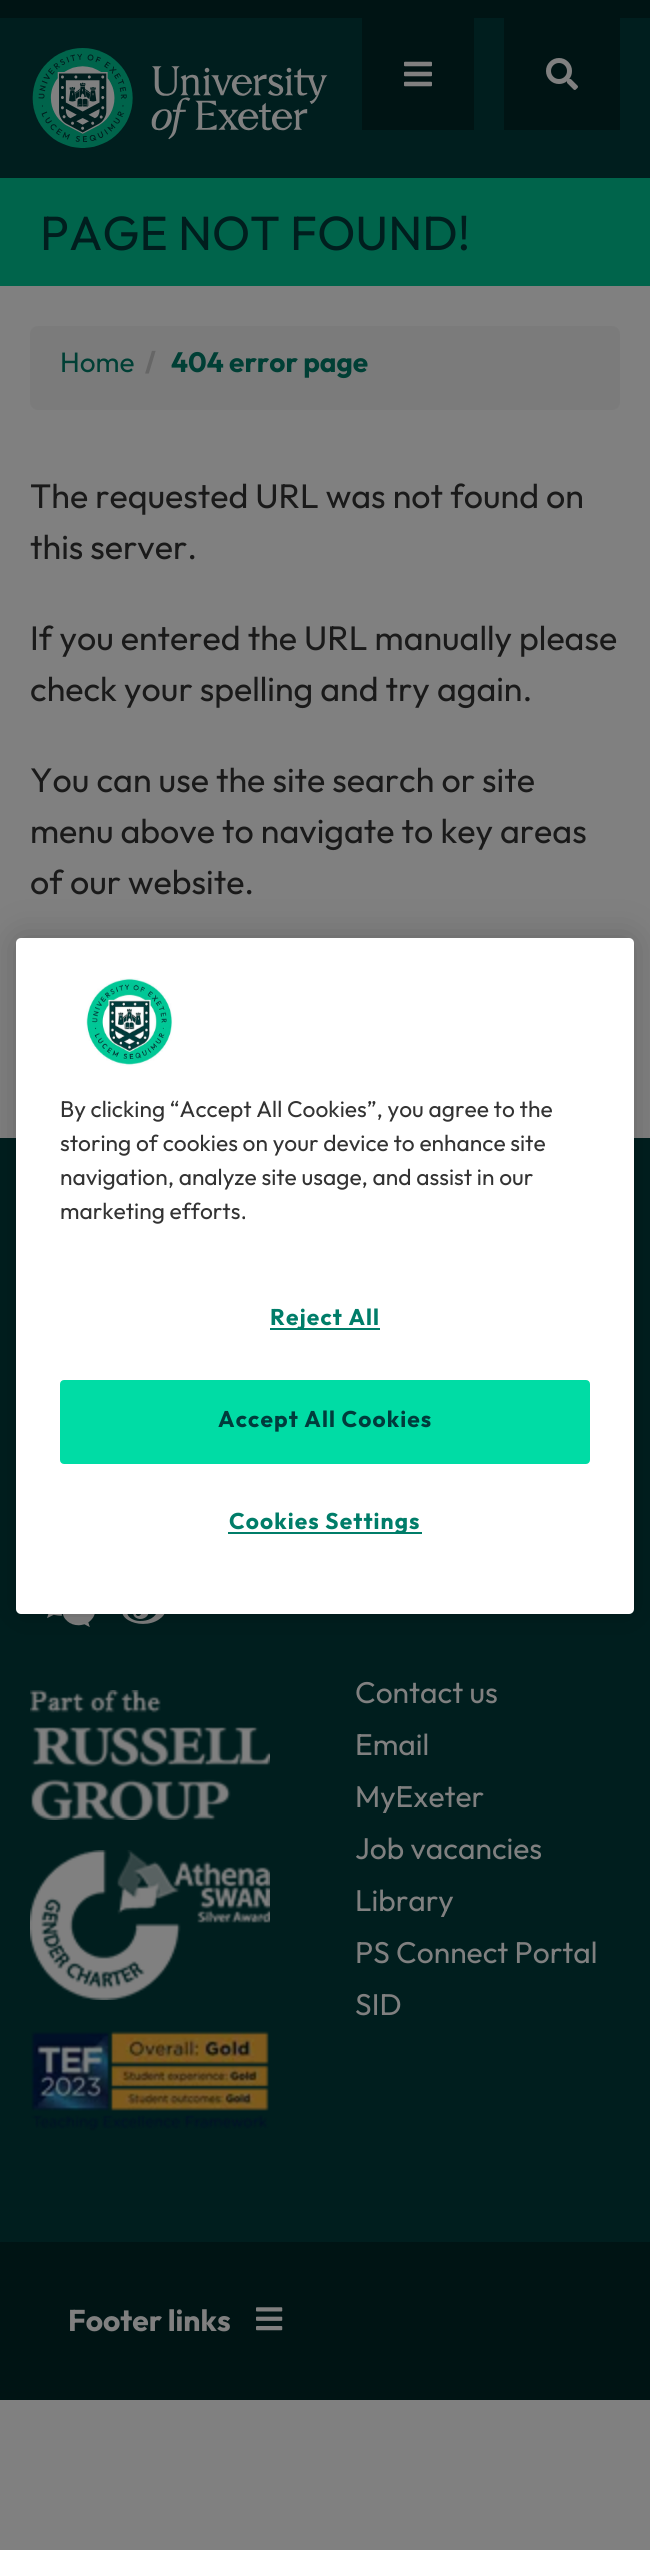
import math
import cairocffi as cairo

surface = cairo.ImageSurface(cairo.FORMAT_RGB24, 650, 2550)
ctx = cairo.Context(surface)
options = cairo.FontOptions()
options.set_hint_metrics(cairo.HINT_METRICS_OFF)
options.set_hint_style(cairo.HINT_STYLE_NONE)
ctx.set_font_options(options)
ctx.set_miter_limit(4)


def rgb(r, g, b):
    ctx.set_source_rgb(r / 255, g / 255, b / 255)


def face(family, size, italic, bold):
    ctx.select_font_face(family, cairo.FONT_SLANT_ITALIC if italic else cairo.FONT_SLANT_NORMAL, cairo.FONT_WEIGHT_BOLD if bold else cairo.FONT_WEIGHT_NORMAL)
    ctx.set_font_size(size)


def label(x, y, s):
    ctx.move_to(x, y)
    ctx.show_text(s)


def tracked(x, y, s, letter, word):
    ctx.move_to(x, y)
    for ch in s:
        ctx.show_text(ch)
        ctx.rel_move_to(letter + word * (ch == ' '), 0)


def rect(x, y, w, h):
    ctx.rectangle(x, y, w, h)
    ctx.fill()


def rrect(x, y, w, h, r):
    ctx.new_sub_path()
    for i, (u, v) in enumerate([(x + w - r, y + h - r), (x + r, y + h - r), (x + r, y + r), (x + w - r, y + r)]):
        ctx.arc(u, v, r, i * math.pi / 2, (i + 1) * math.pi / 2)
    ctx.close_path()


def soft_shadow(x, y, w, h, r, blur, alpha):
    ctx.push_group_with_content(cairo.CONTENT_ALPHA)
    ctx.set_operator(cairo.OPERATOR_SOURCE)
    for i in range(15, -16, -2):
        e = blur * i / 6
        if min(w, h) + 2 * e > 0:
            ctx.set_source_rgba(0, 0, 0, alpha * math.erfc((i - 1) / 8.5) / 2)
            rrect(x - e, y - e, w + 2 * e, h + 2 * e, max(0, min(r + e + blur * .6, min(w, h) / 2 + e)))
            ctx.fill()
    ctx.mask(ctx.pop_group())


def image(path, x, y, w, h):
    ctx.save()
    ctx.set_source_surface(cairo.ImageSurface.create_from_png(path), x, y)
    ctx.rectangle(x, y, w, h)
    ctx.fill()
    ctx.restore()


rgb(128, 128, 128)
ctx.paint()
rgb(0, 30, 30)
rect(0, 18, 650, 160)
rgb(0, 20, 20)
rect(0, 0, 650, 18)
image('image0.png', 32, 48, 296, 100)
rect(362, 18, 112, 112)
image('image1.png', 404, 61, 28, 26)
rect(504, 18, 116, 112)
image('image2.png', 546, 58, 32, 32)
rgb(0, 100, 75)
rect(0, 178, 650, 108)
face('Outfit Thin', 48, 0, 0)
rgb(0, 30, 30)
label(40, 250, 'PAGE NOT FOUND!')
rgb(123, 123, 123)
rrect(30, 326, 590, 84, 8)
ctx.fill()
face('Outfit Thin', 28, 0, 0)
rgb(0, 63, 53)
label(60, 372, 'Home')
face('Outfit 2 Thin', 28, 0, 0)
rgb(102, 102, 102)
label(145, 372, '/')
rgb(0, 63, 53)
label(171, 372, '404 error page')
face('Outfit Thin', 34, 0, 0)
rgb(26, 26, 26)
label(30, 508, 'The requested URL was not found on')
label(30, 559, 'this server.')
label(30, 650, 'If you entered the URL manually please')
label(30, 701, 'check your spelling and try again.')
label(30, 792, 'You can use the site search or site')
label(30, 843, 'menu above to navigate to key areas')
label(30, 894, 'of our website.')
rgb(0, 30, 30)
rect(0, 1138, 650, 1104)
image('image4.png', 47, 1614, 48, 13)
image('image5.png', 122, 1614, 43, 10)
rgb(0, 0, 0)
soft_shadow(16, 938, 618, 676, 5, 18, 0.2)
rgb(255, 255, 255)
rrect(16, 938, 618, 676, 5)
ctx.fill()
image('image3.png', 86, 978, 87, 88)
face('Outfit Thin', 22.75, 0, 0)
rgb(51, 51, 51)
label(60, 1117, 'By clicking “Accept All Cookies”, you agree to the')
label(60, 1151, 'storing of cookies on your device to enhance site')
label(60, 1185, 'navigation, analyze site usage, and assist in our')
label(60, 1219, 'marketing efforts.')
rgb(0, 125, 105)
rect(270, 1328, 110, 2)
face('Outfit 2 Thin', 22.75, 0, 0)
tracked(270, 1325, 'Reject All', 1.1, 0)
rgb(0, 220, 165)
rrect(61, 1381, 528, 82, 3)
ctx.fill_preserve()
ctx.stroke()
rgb(0, 60, 60)
tracked(218, 1427, 'Accept All Cookies', 1.1, 0)
rgb(0, 125, 105)
rect(228, 1532, 194, 2)
tracked(229, 1529, 'Cookies Settings', 1.1, 0)
image('image6.png', 30, 1690, 240, 130)
image('image7.png', 30, 1850, 240, 150)
image('image8.png', 31, 2031, 238, 100)
face('Outfit Thin', 30, 0, 0)
rgb(128, 128, 128)
label(355, 1703, 'Contact us')
label(355, 1755, 'Email')
label(355, 1807, 'MyExeter')
label(355, 1859, 'Job vacancies')
label(355, 1911, 'Library')
label(355, 1963, 'PS Connect Portal')
label(355, 2015, 'SID')
rgb(0, 20, 20)
rect(0, 2242, 650, 158)
face('Outfit 2 Thin', 30, 0, 0)
rgb(128, 128, 128)
label(68, 2331, 'Footer links')
image('image9.png', 256, 2307, 27, 24)
surface.write_to_png('render.png')
